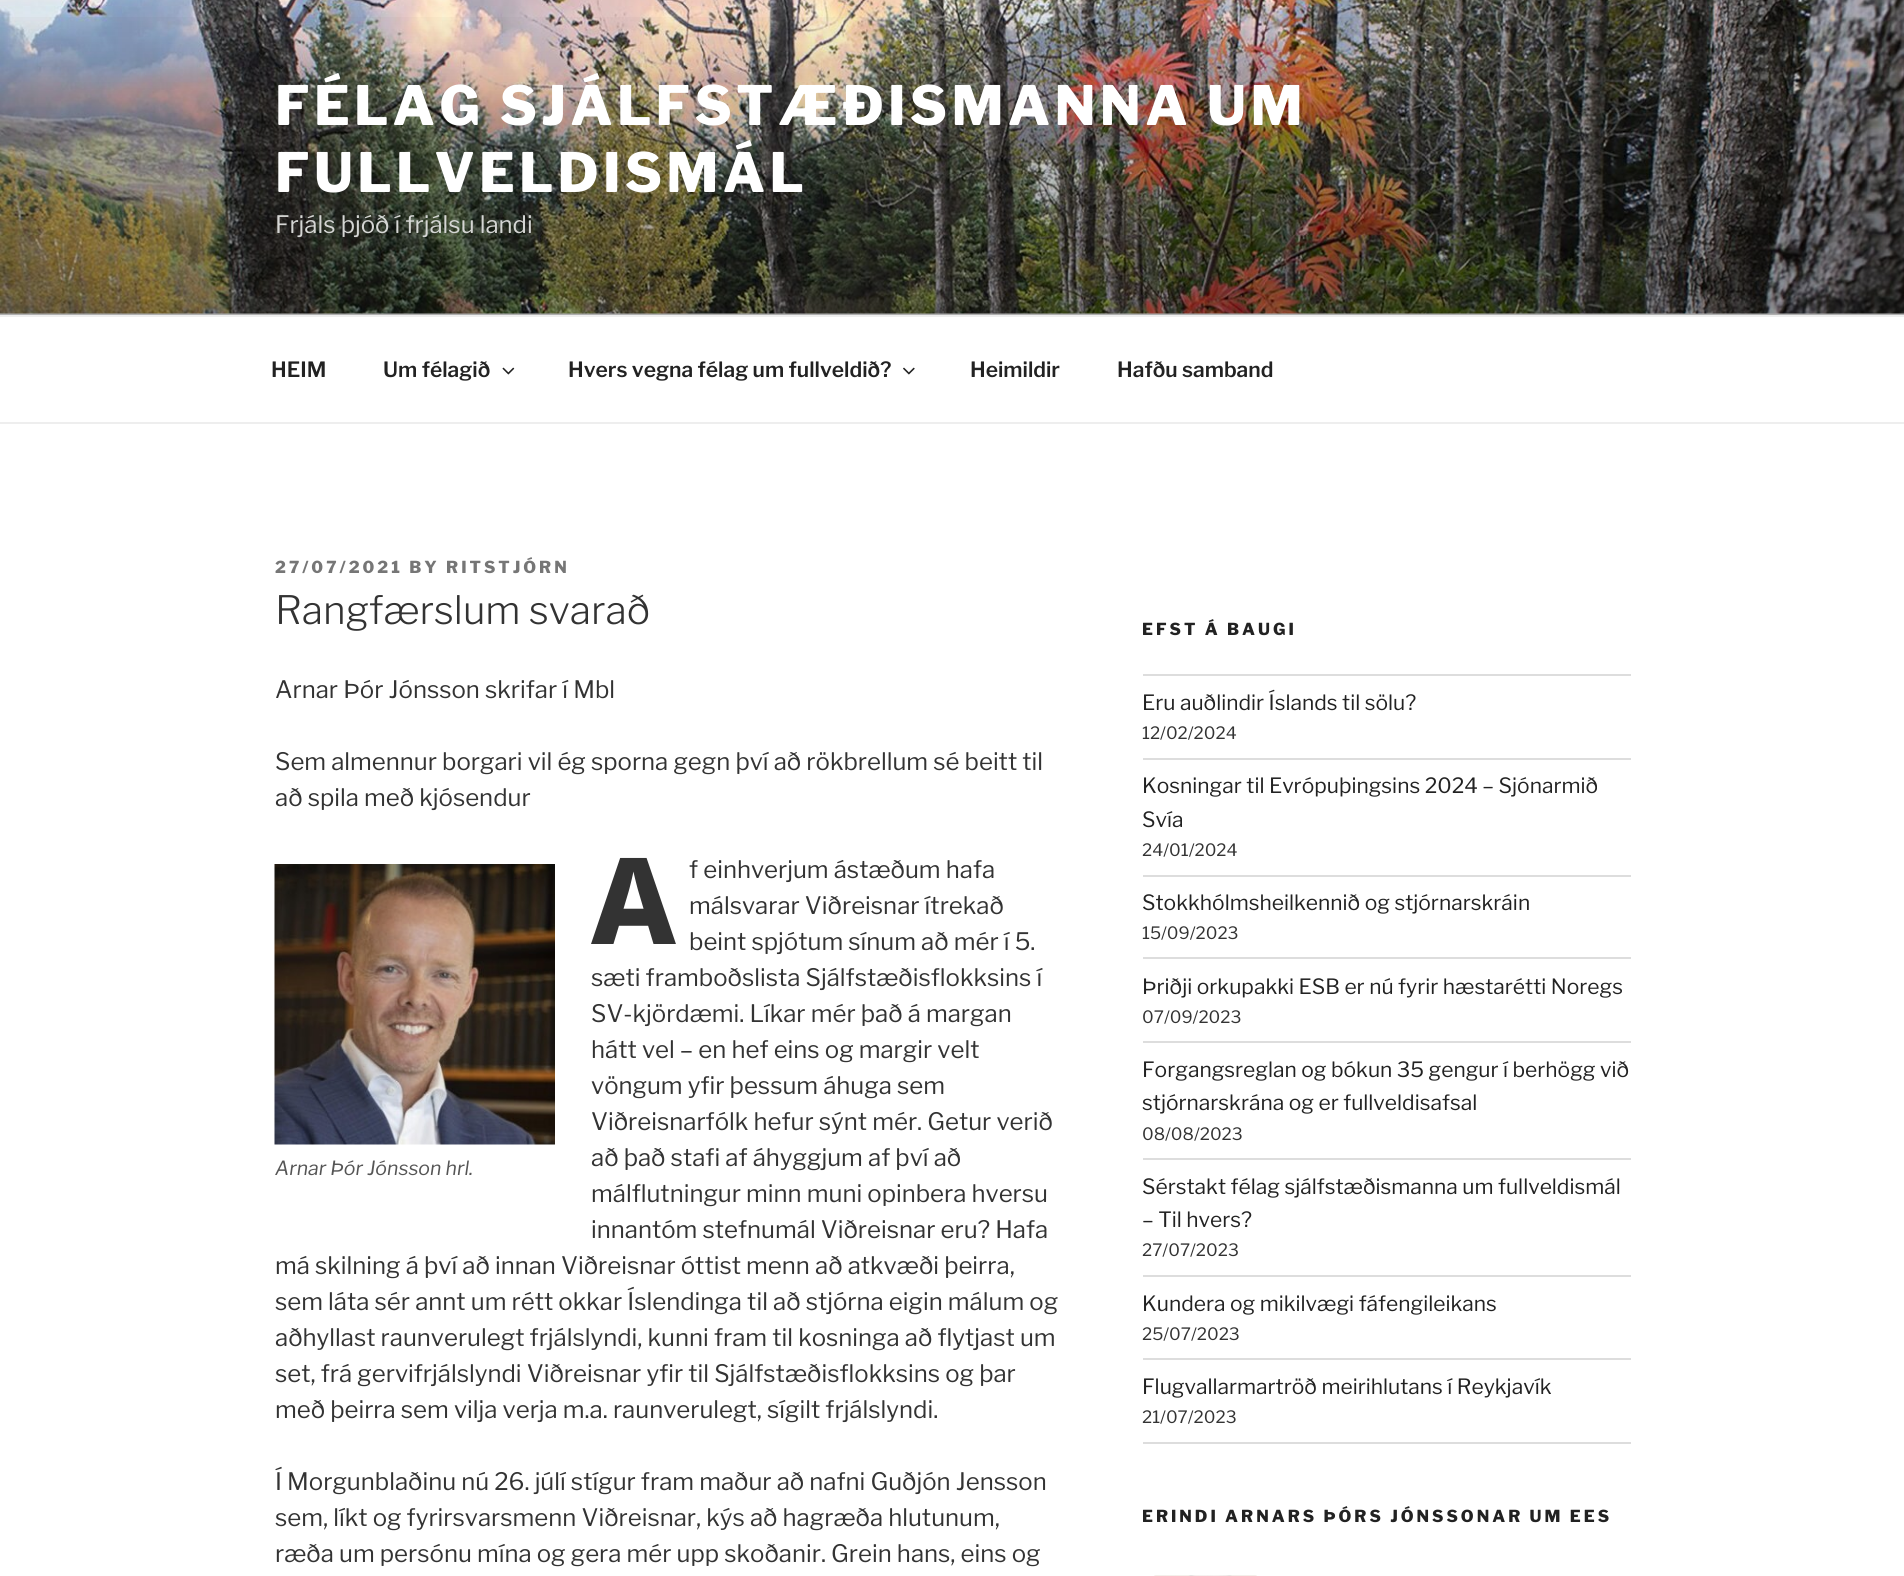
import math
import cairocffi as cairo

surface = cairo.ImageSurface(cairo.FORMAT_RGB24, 1904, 1576)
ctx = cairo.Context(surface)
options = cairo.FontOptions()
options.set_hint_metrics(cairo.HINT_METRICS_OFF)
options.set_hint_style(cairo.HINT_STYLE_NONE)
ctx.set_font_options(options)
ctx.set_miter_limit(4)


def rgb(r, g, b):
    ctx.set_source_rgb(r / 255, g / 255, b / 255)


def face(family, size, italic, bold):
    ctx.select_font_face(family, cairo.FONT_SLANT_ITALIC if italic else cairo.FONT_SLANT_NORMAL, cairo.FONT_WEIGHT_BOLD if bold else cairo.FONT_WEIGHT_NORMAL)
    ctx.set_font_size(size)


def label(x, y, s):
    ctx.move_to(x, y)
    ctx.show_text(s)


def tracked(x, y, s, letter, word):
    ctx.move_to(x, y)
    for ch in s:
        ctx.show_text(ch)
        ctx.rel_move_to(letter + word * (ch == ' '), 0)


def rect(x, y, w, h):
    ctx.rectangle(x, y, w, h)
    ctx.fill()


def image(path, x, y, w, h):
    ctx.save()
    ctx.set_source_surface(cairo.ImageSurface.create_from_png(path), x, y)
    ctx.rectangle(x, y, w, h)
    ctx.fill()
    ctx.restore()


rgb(255, 255, 255)
ctx.paint()
rgb(250, 250, 250)
rect(0, 313, 1904, 2)
image('image0.png', 0, 0, 1904, 314)
gradient = cairo.LinearGradient(953, 0, 953, 315)
gradient.add_color_stop_rgba(0, 0, 0, 0, 0)
gradient.add_color_stop_rgba(0.75, 0, 0, 0, 0.3)
gradient.add_color_stop_rgba(1, 0, 0, 0, 0.3)
ctx.set_source(gradient)
rect(0, 17, 1904, 298)
face('Libre Franklin Thin', 54, 0, 0)
rgb(255, 255, 255)
tracked(275, 125, 'FÉLAG SJÁLFSTÆÐISMANNA UM', 4.3, 0)
tracked(275, 192, 'FULLVELDISMÁL', 4.3, 0)
face('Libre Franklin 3 Thin', 24, 0, 0)
rgb(213, 214, 212)
label(275, 233, 'Frjáls þjóð í frjálsu landi')
rgb(238, 238, 238)
rect(0, 315, 1904, 2)
rect(0, 422, 1904, 2)
face('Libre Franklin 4 Thin', 21, 0, 0)
rgb(34, 34, 34)
label(271, 377, 'HEIM')
label(383, 377, 'Um félagið')
image('image1.png', 502, 367, 13, 8)
label(568, 377, 'Hvers vegna félag um fullveldið?')
image('image2.png', 903, 367, 12, 8)
label(970, 377, 'Heimildir')
label(1117, 377, 'Hafðu samband')
face('Libre Franklin Thin', 16.5, 0, 0)
rgb(118, 118, 118)
tracked(275, 573, '27/07/2021 BY RITSTJÓRN', 3, 0)
face('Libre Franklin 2 Thin', 39, 0, 0)
rgb(51, 51, 51)
label(275, 624, 'Rangfærslum svarað')
face('Libre Franklin 3 Thin', 24, 0, 0)
label(275, 698, 'Arnar Þór Jónsson skrifar í Mbl')
label(275, 770, 'Sem almennur borgari vil ég sporna gegn því að rökbrellum sé beitt til')
label(275, 806, 'að spila með kjósendur')
face('Noto Sans ExtraBold', 120, 0, 0)
label(591, 944, 'A')
face('Libre Franklin 3 Thin', 24, 0, 0)
label(689, 878, 'f einhverjum ástæðum hafa')
label(689, 914, 'málsvarar Viðreisnar ítrekað')
label(689, 950, 'beint spjótum sínum að mér í 5.')
label(591, 986, 'sæti framboðslista Sjálfstæðisflokksins í')
label(591, 1022, 'SV-kjördæmi. Líkar mér það á margan')
label(591, 1058, 'hátt vel – en hef eins og margir velt')
label(591, 1094, 'vöngum yfir þessum áhuga sem')
label(591, 1130, 'Viðreisnarfólk hefur sýnt mér. Getur verið')
label(591, 1166, 'að það stafi af áhyggjum af því að')
label(591, 1202, 'málflutningur minn muni opinbera hversu')
label(591, 1238, 'innantóm stefnumál Viðreisnar eru? Hafa')
label(275, 1274, 'má skilning á því að innan Viðreisnar óttist menn að atkvæði þeirra,')
label(275, 1310, 'sem láta sér annt um rétt okkar Íslendinga til að stjórna eigin málum og')
label(275, 1346, 'aðhyllast raunverulegt frjálslyndi, kunni fram til kosninga að flytjast um')
label(275, 1382, 'set, frá gervifrjálslyndi Viðreisnar yfir til Sjálfstæðisflokksins og þar')
label(275, 1418, 'með þeirra sem vilja verja m.a. raunverulegt, sígilt frjálslyndi.')
image('image3.png', 274, 864, 281, 281)
face('Libre Franklin Thin', 19.5, 1, 0)
rgb(85, 85, 85)
label(275, 1175, 'Arnar Þór Jónsson hrl.')
face('Libre Franklin 3 Thin', 24, 0, 0)
rgb(51, 51, 51)
label(275, 1490, 'Í Morgunblaðinu nú 26. júlí stígur fram maður að nafni Guðjón Jensson')
label(275, 1526, 'sem, líkt og fyrirsvarsmenn Viðreisnar, kýs að hagræða hlutunum,')
label(275, 1562, 'ræða um persónu mína og gera mér upp skoðanir. Grein hans, eins og')
face('Libre Franklin Thin', 16.5, 0, 0)
rgb(34, 34, 34)
tracked(1142, 635, 'EFST Á BAUGI', 3, 0)
rgb(221, 221, 221)
rect(1143, 674, 488, 2)
rect(1143, 758, 488, 2)
face('Libre Franklin 3 Thin', 21, 0, 0)
rgb(34, 34, 34)
label(1142, 710, 'Eru auðlindir Íslands til sölu?')
face('Libre Franklin 3 Thin', 17, 0, 0)
rgb(51, 51, 51)
label(1142, 739, '12/02/2024')
rgb(221, 221, 221)
rect(1143, 875, 488, 2)
face('Libre Franklin 3 Thin', 21, 0, 0)
rgb(34, 34, 34)
label(1142, 793, 'Kosningar til Evrópuþingsins 2024 – Sjónarmið')
label(1142, 827, 'Svía')
face('Libre Franklin 3 Thin', 17, 0, 0)
rgb(51, 51, 51)
label(1142, 856, '24/01/2024')
rgb(221, 221, 221)
rect(1143, 957, 488, 2)
face('Libre Franklin 3 Thin', 21, 0, 0)
rgb(34, 34, 34)
label(1142, 910, 'Stokkhólmsheilkennið og stjórnarskráin')
face('Libre Franklin 3 Thin', 17, 0, 0)
rgb(51, 51, 51)
label(1142, 939, '15/09/2023')
rgb(221, 221, 221)
rect(1143, 1041, 488, 2)
face('Libre Franklin 3 Thin', 21, 0, 0)
rgb(34, 34, 34)
label(1142, 994, 'Þriðji orkupakki ESB er nú fyrir hæstarétti Noregs')
face('Libre Franklin 3 Thin', 17, 0, 0)
rgb(51, 51, 51)
label(1142, 1023, '07/09/2023')
rgb(221, 221, 221)
rect(1143, 1158, 488, 2)
face('Libre Franklin 3 Thin', 21, 0, 0)
rgb(34, 34, 34)
label(1142, 1077, 'Forgangsreglan og bókun 35 gengur í berhögg við')
label(1142, 1110, 'stjórnarskrána og er fullveldisafsal')
face('Libre Franklin 3 Thin', 17, 0, 0)
rgb(51, 51, 51)
label(1142, 1140, '08/08/2023')
rgb(221, 221, 221)
rect(1143, 1275, 488, 2)
face('Libre Franklin 3 Thin', 21, 0, 0)
rgb(34, 34, 34)
label(1142, 1194, 'Sérstakt félag sjálfstæðismanna um fullveldismál')
label(1142, 1227, '– Til hvers?')
face('Libre Franklin 3 Thin', 17, 0, 0)
rgb(51, 51, 51)
label(1142, 1256, '27/07/2023')
rgb(221, 221, 221)
rect(1143, 1358, 488, 2)
face('Libre Franklin 3 Thin', 21, 0, 0)
rgb(34, 34, 34)
label(1142, 1311, 'Kundera og mikilvægi fáfengileikans')
face('Libre Franklin 3 Thin', 17, 0, 0)
rgb(51, 51, 51)
label(1142, 1340, '25/07/2023')
rgb(221, 221, 221)
rect(1143, 1442, 488, 2)
face('Libre Franklin 3 Thin', 21, 0, 0)
rgb(34, 34, 34)
label(1142, 1394, 'Flugvallarmartröð meirihlutans í Reykjavík')
face('Libre Franklin 3 Thin', 17, 0, 0)
rgb(51, 51, 51)
label(1142, 1423, '21/07/2023')
face('Libre Franklin Thin', 16.5, 0, 0)
rgb(34, 34, 34)
tracked(1142, 1522, 'ERINDI ARNARS ÞÓRS JÓNSSONAR UM EES', 3, 0)
image('image4.png', 1154, 1575, 103, 1)
surface.write_to_png('render.png')
